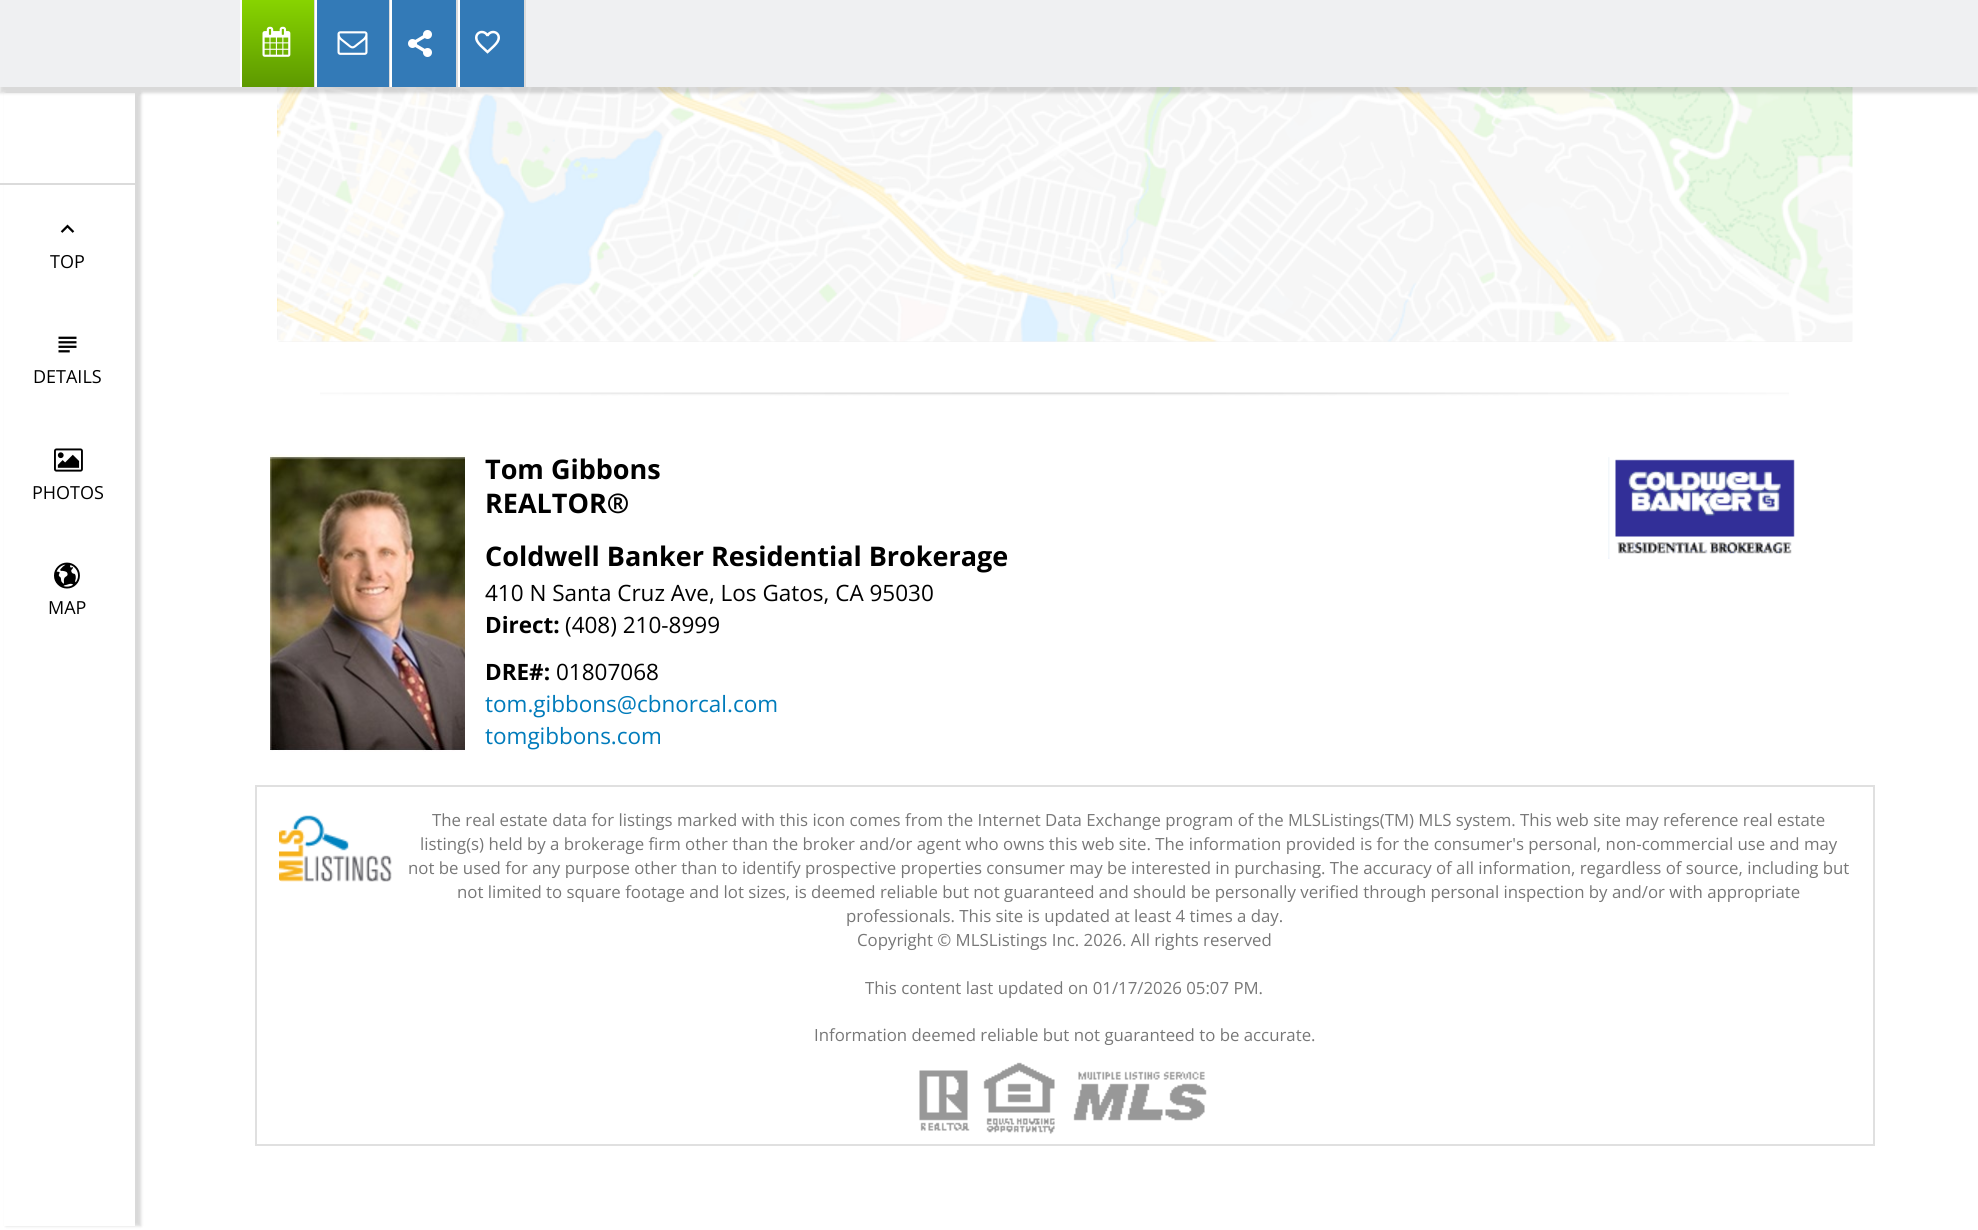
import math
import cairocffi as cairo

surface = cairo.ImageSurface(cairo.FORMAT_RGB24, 1978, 1230)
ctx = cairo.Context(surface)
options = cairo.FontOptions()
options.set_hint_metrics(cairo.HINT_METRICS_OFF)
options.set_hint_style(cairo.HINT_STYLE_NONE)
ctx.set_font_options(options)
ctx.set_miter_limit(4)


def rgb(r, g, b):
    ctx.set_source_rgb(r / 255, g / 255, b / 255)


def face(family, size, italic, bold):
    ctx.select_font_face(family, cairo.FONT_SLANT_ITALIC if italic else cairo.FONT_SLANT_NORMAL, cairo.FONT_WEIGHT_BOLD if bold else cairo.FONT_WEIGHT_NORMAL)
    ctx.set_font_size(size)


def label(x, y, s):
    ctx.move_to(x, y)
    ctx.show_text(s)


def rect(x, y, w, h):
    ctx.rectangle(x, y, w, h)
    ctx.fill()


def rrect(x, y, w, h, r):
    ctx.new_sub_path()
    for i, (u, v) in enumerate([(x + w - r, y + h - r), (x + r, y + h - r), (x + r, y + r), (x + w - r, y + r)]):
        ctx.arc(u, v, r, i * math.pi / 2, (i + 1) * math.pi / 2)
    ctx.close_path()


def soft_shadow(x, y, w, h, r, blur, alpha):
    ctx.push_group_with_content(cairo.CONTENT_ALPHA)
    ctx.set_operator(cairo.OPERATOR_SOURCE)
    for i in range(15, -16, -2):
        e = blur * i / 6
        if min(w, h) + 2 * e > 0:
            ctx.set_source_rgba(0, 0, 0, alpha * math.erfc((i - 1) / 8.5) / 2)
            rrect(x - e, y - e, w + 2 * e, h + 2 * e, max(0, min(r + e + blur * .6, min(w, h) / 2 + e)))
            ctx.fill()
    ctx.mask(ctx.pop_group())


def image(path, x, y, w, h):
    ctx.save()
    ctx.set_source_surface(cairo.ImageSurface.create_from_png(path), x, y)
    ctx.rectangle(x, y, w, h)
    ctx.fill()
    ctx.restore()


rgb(255, 255, 255)
ctx.paint()
rgb(0, 0, 0)
soft_shadow(6, 93, 135, 1133, 0, 1.5, 0.15)
rgb(255, 255, 255)
rect(4, 93, 131, 1133)
ctx.set_source_rgba(0.843, 0.843, 0.843, 0.3)
ctx.new_path()
ctx.move_to(1852, 342)
ctx.line_to(278, 342)
ctx.line_to(279, 340)
ctx.line_to(1851, 340)
ctx.close_path()
ctx.fill()
image('image8.png', 277, 87, 1576, 255)
rgb(0, 0, 0)
soft_shadow(0, 6, 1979, 87, 0, 1.5, 0.15)
rgb(239, 240, 242)
rect(0, 0, 1978, 87)
gradient = cairo.LinearGradient(278, 0, 278, 87)
gradient.add_color_stop_rgba(0.01, 0.529, 0.827, 0, 1)
gradient.add_color_stop_rgba(1, 0.365, 0.6, 0, 1)
ctx.set_source(gradient)
rect(242, 0, 72, 87)
rgb(219, 219, 219)
rect(314, 0, 1, 87)
rgb(255, 255, 255)
rect(240, 0, 2, 87)
image('image0.png', 262, 26, 29, 31)
rgb(51, 122, 183)
rect(317, 0, 72, 87)
rgb(219, 219, 219)
rect(389, 0, 1, 87)
rgb(255, 255, 255)
rect(315, 0, 2, 87)
image('image1.png', 337, 31, 31, 24)
rgb(51, 122, 183)
rect(392, 0, 64, 87)
rgb(219, 219, 219)
rect(456, 0, 2, 87)
rgb(255, 255, 255)
rect(390, 0, 2, 87)
image('image2.png', 408, 30, 24, 27)
rgb(51, 122, 183)
rect(460, 0, 64, 87)
rgb(219, 219, 219)
rect(524, 0, 2, 87)
rgb(255, 255, 255)
rect(458, 0, 2, 87)
image('image3.png', 475, 30, 25, 24)
rgb(219, 219, 219)
rect(0, 183, 135, 2)
image('image4.png', 60, 224, 15, 9)
face('Open Sans', 18, 0, 0)
rgb(0, 0, 0)
label(50, 268, 'TOP')
image('image5.png', 58, 336, 19, 17)
label(33, 383, 'DETAILS')
image('image6.png', 54, 448, 29, 24)
label(32, 499, 'PHOTOS')
image('image7.png', 54, 562, 26, 27)
label(48, 614, 'MAP')
image('image9.png', 320, 392, 1469, 4)
image('image10.png', 270, 454, 195, 298)
face('Open Sans', 27, 0, 1)
label(485, 479, 'Tom Gibbons')
label(485, 513, 'REALTOR®')
label(485, 566, 'Coldwell Banker Residential Brokerage')
face('Open Sans', 22.5, 0, 0)
label(485, 601, '410 N Santa Cruz Ave, Los Gatos, CA 95030')
face('Open Sans', 22.5, 0, 1)
label(485, 633, 'Direct:')
face('Open Sans', 22.5, 0, 0)
label(565, 633, '(408) 210-8999')
face('Open Sans', 22.5, 0, 1)
label(485, 680, 'DRE#:')
face('Open Sans', 22.5, 0, 0)
label(556, 680, '01807068')
rgb(0, 123, 187)
label(485, 712, 'tom.gibbons@cbnorcal.com')
label(485, 744, 'tomgibbons.com')
image('image11.png', 1608, 457, 187, 102)
ctx.rectangle(256, 786, 1618, 359)
rgb(224, 224, 224)
ctx.stroke()
image('image12.png', 279, 815, 113, 67)
face('Open Sans', 16.8, 0, 0)
rgb(119, 119, 119)
label(432, 826, 'The real estate data for listings marked with this icon comes from the Internet Data Exchange program of the MLSListings(TM) MLS system. This web site may reference real estate')
label(420, 850, 'listing(s) held by a brokerage firm other than the broker and/or agent who owns this web site. The information provided is for the consumer\'s personal, non-commercial use and may')
label(408, 874, 'not be used for any purpose other than to identify prospective properties consumer may be interested in purchasing. The accuracy of all information, regardless of source, including but')
label(457, 898, 'not limited to square footage and lot sizes, is deemed reliable but not guaranteed and should be personally verified through personal inspection by and/or with appropriate')
label(846, 922, 'professionals. This site is updated at least 4 times a day.')
label(857, 946, 'Copyright © MLSListings Inc. 2026. All rights reserved')
label(865, 994, 'This content last updated on 01/17/2026 05:07 PM.')
label(814, 1041, 'Information deemed reliable but not guaranteed to be accurate.')
image('image13.png', 919, 1062, 288, 72)
surface.write_to_png('render.png')
